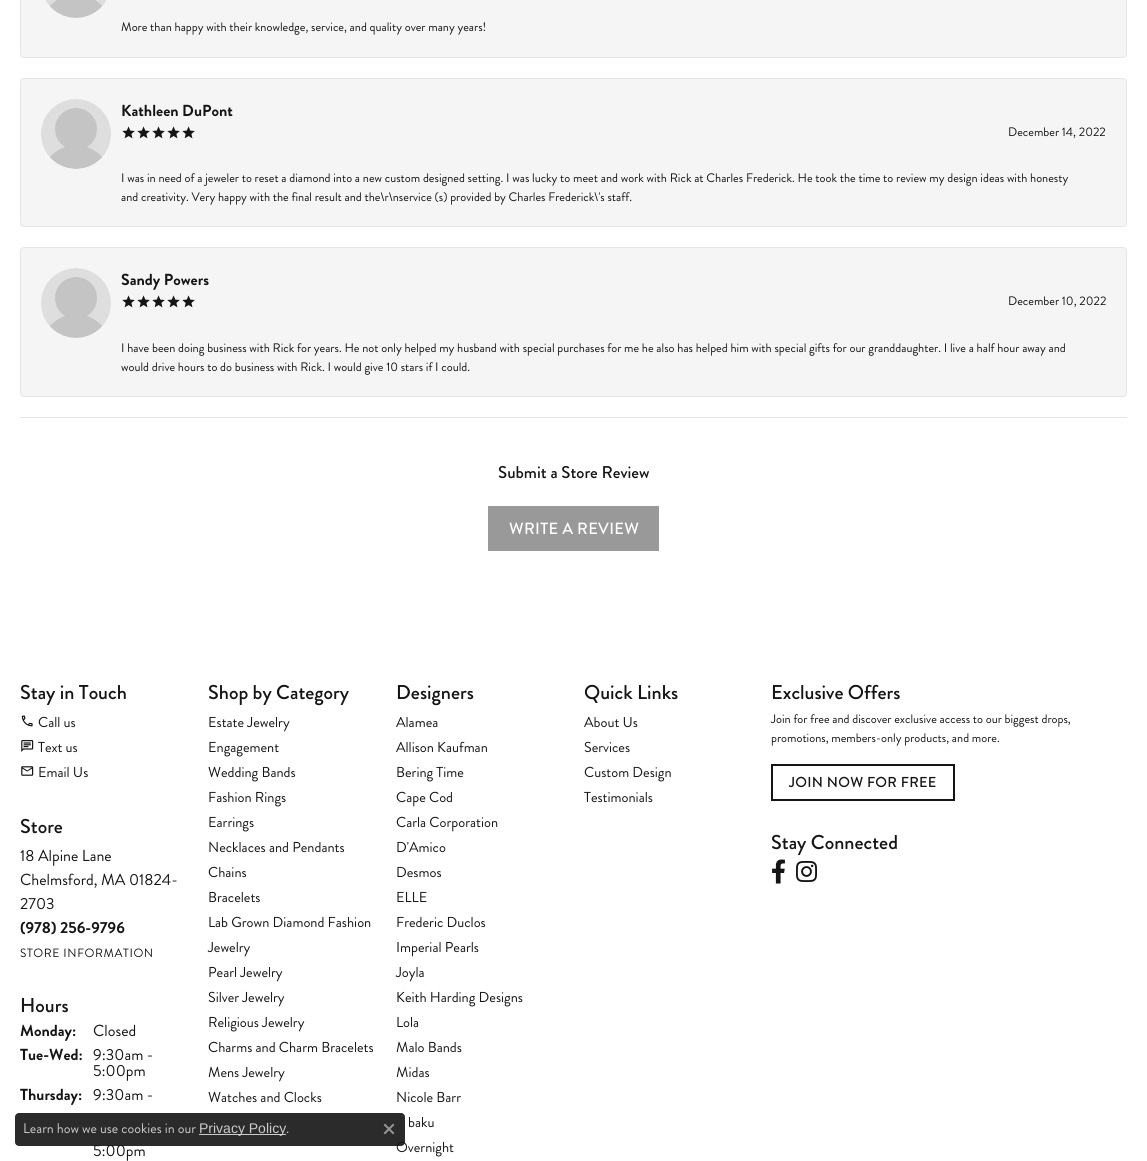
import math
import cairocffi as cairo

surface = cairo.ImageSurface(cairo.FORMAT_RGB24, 1147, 1161)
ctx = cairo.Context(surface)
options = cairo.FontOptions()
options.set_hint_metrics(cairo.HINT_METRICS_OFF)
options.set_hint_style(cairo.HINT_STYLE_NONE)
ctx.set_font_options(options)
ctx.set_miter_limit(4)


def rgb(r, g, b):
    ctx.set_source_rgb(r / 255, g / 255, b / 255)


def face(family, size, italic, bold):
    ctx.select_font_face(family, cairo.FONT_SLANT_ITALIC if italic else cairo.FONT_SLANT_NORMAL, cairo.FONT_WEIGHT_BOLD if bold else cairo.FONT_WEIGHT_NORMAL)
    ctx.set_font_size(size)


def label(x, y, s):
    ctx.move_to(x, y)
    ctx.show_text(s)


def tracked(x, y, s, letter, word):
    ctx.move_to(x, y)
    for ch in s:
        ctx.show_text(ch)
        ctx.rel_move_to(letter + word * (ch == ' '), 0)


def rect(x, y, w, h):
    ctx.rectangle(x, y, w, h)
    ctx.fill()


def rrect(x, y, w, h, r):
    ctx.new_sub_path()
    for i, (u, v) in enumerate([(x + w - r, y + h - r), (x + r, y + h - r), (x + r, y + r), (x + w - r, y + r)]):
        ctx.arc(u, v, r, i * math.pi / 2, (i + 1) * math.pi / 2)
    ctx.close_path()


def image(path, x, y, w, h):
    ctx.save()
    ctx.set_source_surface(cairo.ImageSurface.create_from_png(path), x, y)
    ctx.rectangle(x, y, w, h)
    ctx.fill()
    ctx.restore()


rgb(255, 255, 255)
ctx.paint()
rgb(229, 229, 229)
rect(20, 417, 1107, 1)
rgb(245, 245, 245)
rrect(20.5, -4.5, 1106, 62, 3.5)
ctx.fill_preserve()
rgb(229, 229, 229)
ctx.set_line_width(1)
ctx.stroke()
image('image0.png', 45, 0, 61, 18)
face('Brandon Grotesque', 12.35, 0, 0)
rgb(21, 21, 21)
label(121, 31, 'More than happy with their knowledge, service, and quality over many years!')
rgb(245, 245, 245)
rrect(20.5, 78.5, 1106, 148, 3.5)
ctx.fill_preserve()
rgb(229, 229, 229)
ctx.stroke()
image('image1.png', 41, 99, 70, 70)
face('Brandon Grotesque', 16, 0, 1)
rgb(21, 21, 21)
label(121, 116, 'Kathleen DuPont')
image('image2.png', 122, 126, 13, 13)
image('image2.png', 137, 126, 13, 13)
image('image2.png', 152, 126, 13, 13)
image('image2.png', 167, 126, 13, 13)
image('image2.png', 182, 126, 13, 13)
face('Brandon Grotesque', 12.35, 0, 0)
label(1008, 136, 'December 14, 2022')
label(121, 182, 'I was in need of a jeweler to reset a diamond into a new custom designed setting. I was lucky to meet and work with Rick at Charles Frederick. He took the time to review my design ideas with honesty')
label(121, 201, 'and creativity. Very happy with the final result and the\\r\\nservice (s) provided by Charles Frederick\\\'s staff.')
rgb(245, 245, 245)
rrect(20.5, 247.5, 1106, 149, 3.5)
ctx.fill_preserve()
rgb(229, 229, 229)
ctx.stroke()
image('image3.png', 41, 268, 70, 70)
face('Brandon Grotesque', 16, 0, 1)
rgb(21, 21, 21)
label(121, 285, 'Sandy Powers')
image('image2.png', 122, 295, 13, 13)
image('image2.png', 137, 295, 13, 13)
image('image2.png', 152, 295, 13, 13)
image('image2.png', 167, 295, 13, 13)
image('image2.png', 182, 295, 13, 13)
face('Brandon Grotesque', 12.35, 0, 0)
label(1008, 305, 'December 10, 2022')
label(121, 352, 'I have been doing business with Rick for years. He not only helped my husband with special purchases for me he also has helped him with special gifts for our granddaughter. I live a half hour away and')
label(121, 371, 'would drive hours to do business with Rick. I would give 10 stars if I could.')
face('Brandon Grotesque Medium', 17, 0, 0)
label(498, 478, 'Submit a Store Review')
rgb(153, 153, 153)
rect(488, 506, 171, 45)
face('Brandon Grotesque Medium', 16.25, 0, 0)
rgb(255, 255, 255)
tracked(509, 534, 'WRITE A REVIEW', 0.3, 0)
face('Brandon Grotesque Medium', 20, 0, 0)
rgb(21, 21, 21)
label(20, 699, 'Stay in Touch')
image('image4.png', 21, 715, 12, 12)
face('Brandon Grotesque', 14.4, 0, 0)
label(38, 727, 'Call us')
image('image5.png', 21, 740, 13, 12)
label(38, 752, 'Text us')
image('image6.png', 21, 766, 13, 10)
label(38, 777, 'Email Us')
face('Brandon Grotesque Medium', 20, 0, 0)
label(20, 833, 'Store')
face('Brandon Grotesque', 16, 0, 0)
label(20, 861, '18 Alpine Lane')
label(20, 885, 'Chelmsford, MA 01824-')
label(20, 909, '2703')
face('Brandon Grotesque', 16, 0, 1)
label(20, 933, '(978) 256-9796')
face('Brandon Grotesque', 12, 0, 0)
tracked(20, 957, 'STORE INFORMATION', 0.6, 0)
face('Brandon Grotesque Medium', 20, 0, 0)
label(20, 1012, 'Hours')
face('Brandon Grotesque', 16, 0, 1)
label(20, 1036, 'Monday:')
face('Brandon Grotesque', 16, 0, 0)
label(93, 1036, 'Closed')
face('Brandon Grotesque', 16, 0, 1)
label(20, 1060, 'Tue-Wed:')
face('Brandon Grotesque', 16, 0, 0)
label(93, 1060, '9:30am -')
label(93, 1076, '5:00pm')
face('Brandon Grotesque', 16, 0, 1)
label(20, 1100, 'Thursday:')
face('Brandon Grotesque', 16, 0, 0)
label(93, 1100, '9:30am -')
label(93, 1156, '5:00pm')
face('Brandon Grotesque Medium', 20, 0, 0)
label(208, 699, 'Shop by Category')
face('Brandon Grotesque', 14.4, 0, 0)
label(208, 727, 'Estate Jewelry')
label(208, 752, 'Engagement')
label(208, 777, 'Wedding Bands')
label(208, 802, 'Fashion Rings')
label(208, 827, 'Earrings')
label(208, 852, 'Necklaces and Pendants')
label(208, 877, 'Chains')
label(208, 902, 'Bracelets')
label(208, 927, 'Lab Grown Diamond Fashion')
label(208, 952, 'Jewelry')
label(208, 977, 'Pearl Jewelry')
label(208, 1002, 'Silver Jewelry')
label(208, 1027, 'Religious Jewelry')
label(208, 1052, 'Charms and Charm Bracelets')
label(208, 1077, 'Mens Jewelry')
label(208, 1102, 'Watches and Clocks')
face('Brandon Grotesque Medium', 20, 0, 0)
label(396, 699, 'Designers')
face('Brandon Grotesque', 14.4, 0, 0)
label(396, 727, 'Alamea')
label(396, 752, 'Allison Kaufman')
label(396, 777, 'Bering Time')
label(396, 802, 'Cape Cod')
label(396, 827, 'Carla Corporation')
label(396, 852, 'D\'Amico')
label(396, 877, 'Desmos')
label(396, 902, 'ELLE')
label(396, 927, 'Frederic Duclos')
label(396, 952, 'Imperial Pearls')
label(396, 977, 'Joyla')
label(396, 1002, 'Keith Harding Designs')
label(396, 1027, 'Lola')
label(396, 1052, 'Malo Bands')
label(396, 1077, 'Midas')
label(396, 1102, 'Nicole Barr')
label(408, 1127, 'baku')
label(396, 1152, 'Overnight')
face('Brandon Grotesque Medium', 20, 0, 0)
label(584, 699, 'Quick Links')
face('Brandon Grotesque', 14.4, 0, 0)
label(584, 727, 'About Us')
label(584, 752, 'Services')
label(584, 777, 'Custom Design')
label(584, 802, 'Testimonials')
face('Brandon Grotesque Medium', 20, 0, 0)
label(771, 699, 'Exclusive Offers')
face('Brandon Grotesque', 12.35, 0, 0)
label(771, 723, 'Join for free and discover exclusive access to our biggest drops,')
label(771, 742, 'promotions, members-only products, and more.')
ctx.rectangle(772, 765, 182, 35)
ctx.set_line_width(2)
ctx.stroke()
face('Brandon Grotesque Medium', 14.4, 0, 0)
tracked(789, 787, 'JOIN NOW FOR FREE', 0.3, 0)
face('Brandon Grotesque Medium', 20, 0, 0)
label(771, 849, 'Stay Connected')
image('image7.png', 772, 859, 13, 25)
image('image8.png', 796, 861, 21, 21)
ctx.set_source_rgba(0.082, 0.082, 0.082, 0.9)
rrect(15, 1113, 390, 33, 4)
ctx.fill()
face('Brandon Grotesque', 14, 0, 0)
rgb(204, 204, 204)
label(23, 1133, 'Learn how we use cookies in our')
rect(199, 1134, 87, 1)
face('Liberation Sans', 14, 0, 0)
label(199, 1133, 'Privacy Policy')
face('Brandon Grotesque', 14, 0, 0)
label(286, 1133, '.')
image('image9.png', 383, 1123, 12, 12)
surface.write_to_png('render.png')
